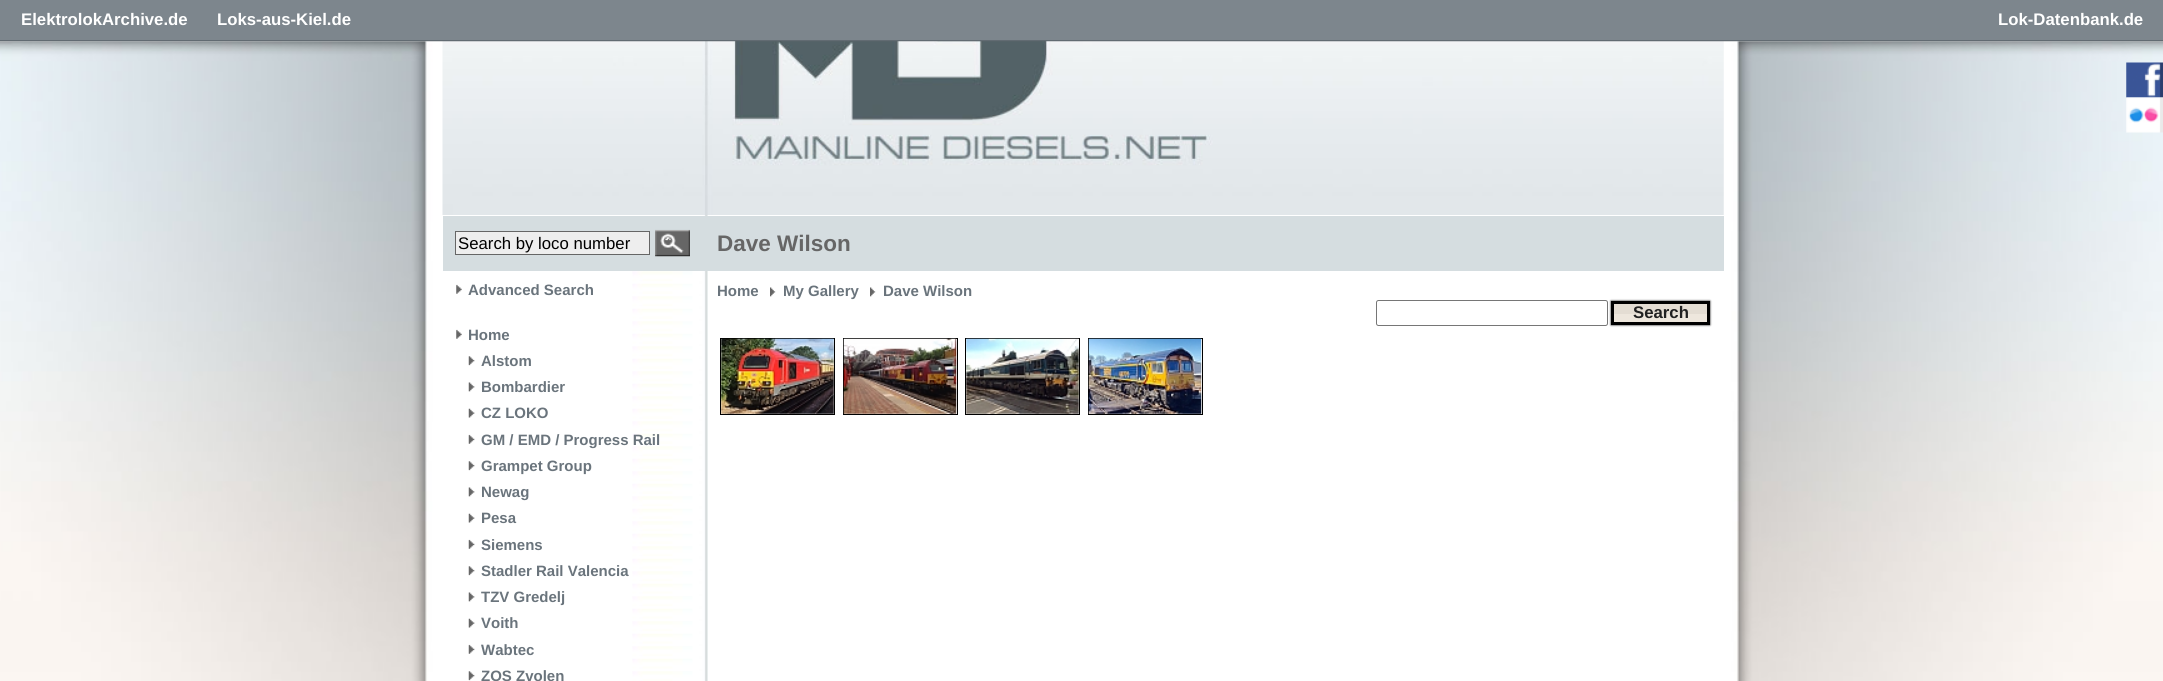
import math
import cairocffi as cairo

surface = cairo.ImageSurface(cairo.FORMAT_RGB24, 2163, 681)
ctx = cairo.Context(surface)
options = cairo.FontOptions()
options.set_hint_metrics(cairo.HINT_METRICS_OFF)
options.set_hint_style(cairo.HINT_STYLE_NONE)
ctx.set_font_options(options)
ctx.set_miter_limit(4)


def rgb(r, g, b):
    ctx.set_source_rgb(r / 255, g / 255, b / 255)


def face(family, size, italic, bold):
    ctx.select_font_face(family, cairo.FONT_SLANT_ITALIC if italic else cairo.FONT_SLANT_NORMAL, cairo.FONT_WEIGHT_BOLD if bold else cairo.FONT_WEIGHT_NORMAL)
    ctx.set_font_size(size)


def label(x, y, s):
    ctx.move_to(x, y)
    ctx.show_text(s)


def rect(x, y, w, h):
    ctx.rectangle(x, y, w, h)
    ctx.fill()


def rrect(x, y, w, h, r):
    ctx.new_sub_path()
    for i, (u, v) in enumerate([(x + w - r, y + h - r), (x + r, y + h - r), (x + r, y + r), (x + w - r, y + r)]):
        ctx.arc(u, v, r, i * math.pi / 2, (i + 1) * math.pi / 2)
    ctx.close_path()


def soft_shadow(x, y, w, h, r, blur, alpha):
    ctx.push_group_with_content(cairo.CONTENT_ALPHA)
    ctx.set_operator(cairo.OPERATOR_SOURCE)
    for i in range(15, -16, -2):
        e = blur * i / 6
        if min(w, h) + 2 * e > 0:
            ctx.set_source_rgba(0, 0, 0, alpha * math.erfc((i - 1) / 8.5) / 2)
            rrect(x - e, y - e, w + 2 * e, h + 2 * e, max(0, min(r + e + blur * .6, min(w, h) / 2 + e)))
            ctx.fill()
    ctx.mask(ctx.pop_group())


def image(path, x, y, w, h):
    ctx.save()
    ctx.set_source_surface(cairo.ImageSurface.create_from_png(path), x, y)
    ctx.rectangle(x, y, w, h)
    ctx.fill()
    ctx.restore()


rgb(255, 255, 255)
ctx.paint()
image('image0.png', 0, 41, 2163, 640)
rgb(125, 134, 141)
rect(0, 0, 2163, 40)
image('image5.png', 442, 41, 1282, 174)
image('image1.png', 0, 40, 2163, 2)
face('Liberation Sans', 16.75, 0, 1)
rgb(255, 255, 255)
label(21, 25, 'ElektrolokArchive.de')
label(217, 25, 'Loks-aus-Kiel.de')
label(1998, 25, 'Lok-Datenbank.de')
image('image2.png', 2126, 62, 37, 36)
image('image3.png', 2126, 97, 37, 36)
image('image4.png', 632, 215, 76, 466)
rgb(213, 221, 224)
rect(443, 216, 1281, 55)
rgb(238, 238, 238)
ctx.rectangle(455.5, 231.5, 194, 23)
ctx.fill_preserve()
rgb(102, 102, 102)
ctx.set_line_width(1)
ctx.stroke()
face('Liberation Sans', 16.75, 0, 0)
rgb(0, 0, 0)
label(458, 249, 'Search by loco number')
image('image6.png', 655, 229, 35, 28)
face('Liberation Sans', 22.5, 0, 1)
rgb(102, 102, 102)
label(717, 251, 'Dave Wilson')
image('image7.png', 456, 284, 6, 10)
face('Liberation Sans', 15, 0, 1)
rgb(106, 116, 124)
label(468, 295, 'Advanced Search')
image('image7.png', 456, 329, 6, 10)
label(468, 340, 'Home')
image('image8.png', 468, 356, 7, 10)
label(481, 366, 'Alstom')
image('image9.png', 468, 382, 7, 10)
label(481, 392, 'Bombardier')
image('image10.png', 468, 408, 7, 10)
label(481, 418, 'CZ LOKO')
image('image11.png', 468, 434, 7, 10)
label(481, 445, 'GM / EMD / Progress Rail')
image('image8.png', 468, 461, 7, 10)
label(481, 471, 'Grampet Group')
image('image9.png', 468, 487, 7, 10)
label(481, 497, 'Newag')
image('image10.png', 468, 513, 7, 10)
label(481, 523, 'Pesa')
image('image11.png', 468, 539, 7, 10)
label(481, 550, 'Siemens')
image('image8.png', 468, 566, 7, 10)
label(481, 576, 'Stadler Rail Valencia')
image('image9.png', 468, 592, 7, 10)
label(481, 602, 'TZV Gredelj')
image('image10.png', 468, 618, 7, 10)
label(481, 628, 'Voith')
image('image11.png', 468, 644, 7, 10)
label(481, 655, 'Wabtec')
image('image8.png', 468, 671, 7, 10)
label(481, 681, 'ZOS Zvolen')
label(717, 296, 'Home')
image('image12.png', 770, 287, 6, 10)
label(783, 296, 'My Gallery')
image('image12.png', 870, 287, 6, 10)
label(883, 296, 'Dave Wilson')
rrect(1376.5, 300.5, 231, 25, 2)
rgb(118, 118, 118)
ctx.stroke()
rgb(0, 0, 0)
soft_shadow(1611, 301, 99, 24, 0, 1, 1)
rgb(238, 231, 221)
rect(1614, 314, 93, 8)
rgb(228, 221, 211)
rect(1614, 304, 93, 10)
ctx.rectangle(1612.5, 302.5, 96, 21)
rgb(0, 0, 0)
ctx.set_line_width(3)
ctx.stroke()
face('Liberation Sans', 16.75, 0, 1)
rgb(33, 33, 33)
label(1633, 318, 'Search')
ctx.rectangle(720.5, 338.5, 114, 76)
rgb(0, 0, 0)
ctx.set_line_width(1)
ctx.stroke()
image('image13.png', 721, 338, 113, 76)
ctx.rectangle(843.5, 338.5, 114, 76)
ctx.stroke()
image('image14.png', 843, 338, 114, 76)
ctx.rectangle(965.5, 338.5, 114, 76)
ctx.stroke()
image('image15.png', 966, 338, 113, 76)
ctx.rectangle(1088.5, 338.5, 114, 76)
ctx.stroke()
image('image16.png', 1088, 338, 114, 76)
surface.write_to_png('render.png')
